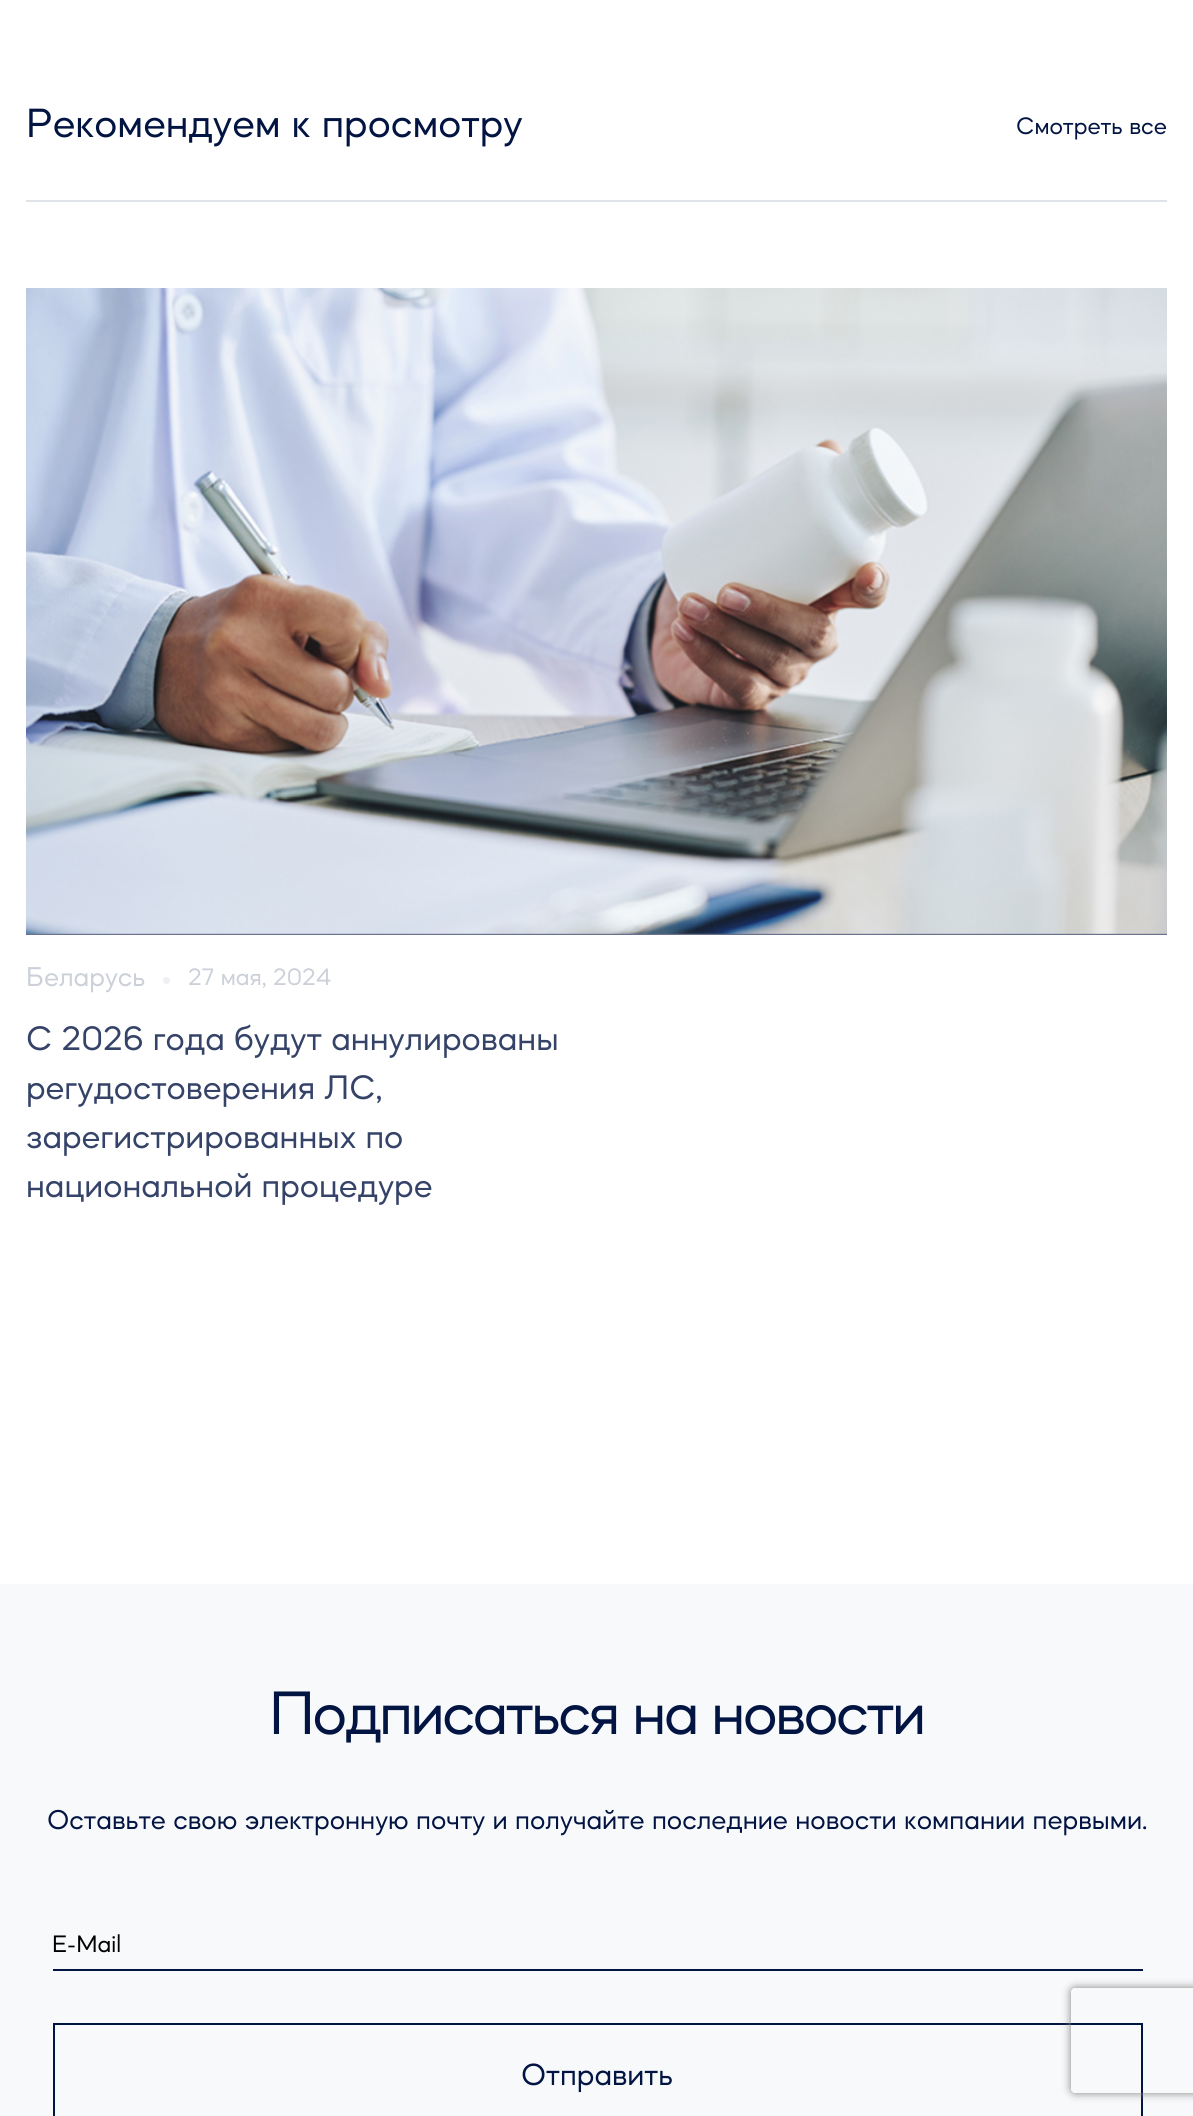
import math
import cairocffi as cairo

surface = cairo.ImageSurface(cairo.FORMAT_RGB24, 1193, 2116)
ctx = cairo.Context(surface)
options = cairo.FontOptions()
options.set_hint_metrics(cairo.HINT_METRICS_OFF)
options.set_hint_style(cairo.HINT_STYLE_NONE)
ctx.set_font_options(options)
ctx.set_miter_limit(4)


def rgb(r, g, b):
    ctx.set_source_rgb(r / 255, g / 255, b / 255)


def face(family, size, italic, bold):
    ctx.select_font_face(family, cairo.FONT_SLANT_ITALIC if italic else cairo.FONT_SLANT_NORMAL, cairo.FONT_WEIGHT_BOLD if bold else cairo.FONT_WEIGHT_NORMAL)
    ctx.set_font_size(size)


def label(x, y, s):
    ctx.move_to(x, y)
    ctx.show_text(s)


def tracked(x, y, s, letter, word):
    ctx.move_to(x, y)
    for ch in s:
        ctx.show_text(ch)
        ctx.rel_move_to(letter + word * (ch == ' '), 0)


def rect(x, y, w, h):
    ctx.rectangle(x, y, w, h)
    ctx.fill()


def rrect(x, y, w, h, r):
    ctx.new_sub_path()
    for i, (u, v) in enumerate([(x + w - r, y + h - r), (x + r, y + h - r), (x + r, y + r), (x + w - r, y + r)]):
        ctx.arc(u, v, r, i * math.pi / 2, (i + 1) * math.pi / 2)
    ctx.close_path()


def soft_shadow(x, y, w, h, r, blur, alpha):
    ctx.push_group_with_content(cairo.CONTENT_ALPHA)
    ctx.set_operator(cairo.OPERATOR_SOURCE)
    for i in range(15, -16, -2):
        e = blur * i / 6
        if min(w, h) + 2 * e > 0:
            ctx.set_source_rgba(0, 0, 0, alpha * math.erfc((i - 1) / 8.5) / 2)
            rrect(x - e, y - e, w + 2 * e, h + 2 * e, max(0, min(r + e + blur * .6, min(w, h) / 2 + e)))
            ctx.fill()
    ctx.mask(ctx.pop_group())


def image(path, x, y, w, h):
    ctx.save()
    ctx.set_source_surface(cairo.ImageSurface.create_from_png(path), x, y)
    ctx.rectangle(x, y, w, h)
    ctx.fill()
    ctx.restore()


rgb(255, 255, 255)
ctx.paint()
rgb(224, 227, 232)
rect(26, 200, 1141, 2)
face('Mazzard', 42, 0, 0)
rgb(2, 20, 66)
label(26, 137, 'Рекомендуем к просмотру')
face('Mazzard', 24.5, 0, 0)
label(1016, 134, 'Смотреть все')
rgb(104, 114, 142)
rect(26, 933, 1141, 2)
image('image0.png', 26, 288, 1141, 646)
face('Mazzard', 28, 0, 0)
rgb(204, 208, 217)
label(26, 986, 'Беларусь')
rgb(239, 240, 243)
ctx.new_path()
ctx.arc(166.5, 980.5, 3.5, 0, 2 * math.pi)
ctx.fill()
face('Mazzard', 24.5, 0, 0)
rgb(204, 208, 217)
label(188, 985, '27 мая, 2024')
face('Mazzard', 35, 0, 0)
rgb(53, 67, 104)
label(26, 1050, 'C 2026 года будут аннулированы')
label(26, 1099, 'регудостоверения ЛС,')
label(26, 1148, 'зарегистрированных по')
label(26, 1197, 'национальной процедуре')
rgb(248, 249, 251)
rect(0, 1584, 1193, 532)
face('Mazzard', 63, 0, 0)
rgb(2, 20, 66)
tracked(269, 1734, 'Подписаться на новости', -2.25, 0)
face('Mazzard', 28, 0, 0)
label(47, 1829, 'Оставьте свою электронную почту и получайте последние новости компании первыми.')
face('Mazzard', 24.5, 0, 0)
rgb(0, 0, 0)
label(52, 1952, 'E-Mail')
rgb(2, 20, 66)
rect(53, 1969, 1090, 2)
ctx.rectangle(54, 2024, 1088, 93)
ctx.stroke()
face('Mazzard', 31.5, 0, 0)
label(521, 2085, 'Отправить')
ctx.save()
ctx.set_fill_rule(cairo.FILL_RULE_EVEN_ODD)
ctx.new_path()
ctx.move_to(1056, 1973)
ctx.line_to(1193, 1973)
ctx.line_to(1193, 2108)
ctx.line_to(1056, 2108)
ctx.close_path()
ctx.move_to(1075, 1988)
ctx.line_to(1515, 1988)
ctx.curve_to(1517, 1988, 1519, 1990, 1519, 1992)
ctx.line_to(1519, 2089)
ctx.curve_to(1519, 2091, 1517, 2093, 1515, 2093)
ctx.line_to(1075, 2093)
ctx.curve_to(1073, 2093, 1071, 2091, 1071, 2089)
ctx.line_to(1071, 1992)
ctx.curve_to(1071, 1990, 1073, 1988, 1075, 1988)
ctx.close_path()
ctx.clip()
rgb(128, 128, 128)
soft_shadow(1071, 1988, 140, 105, 4, 4.5, 1)
ctx.restore()
surface.write_to_png('render.png')
